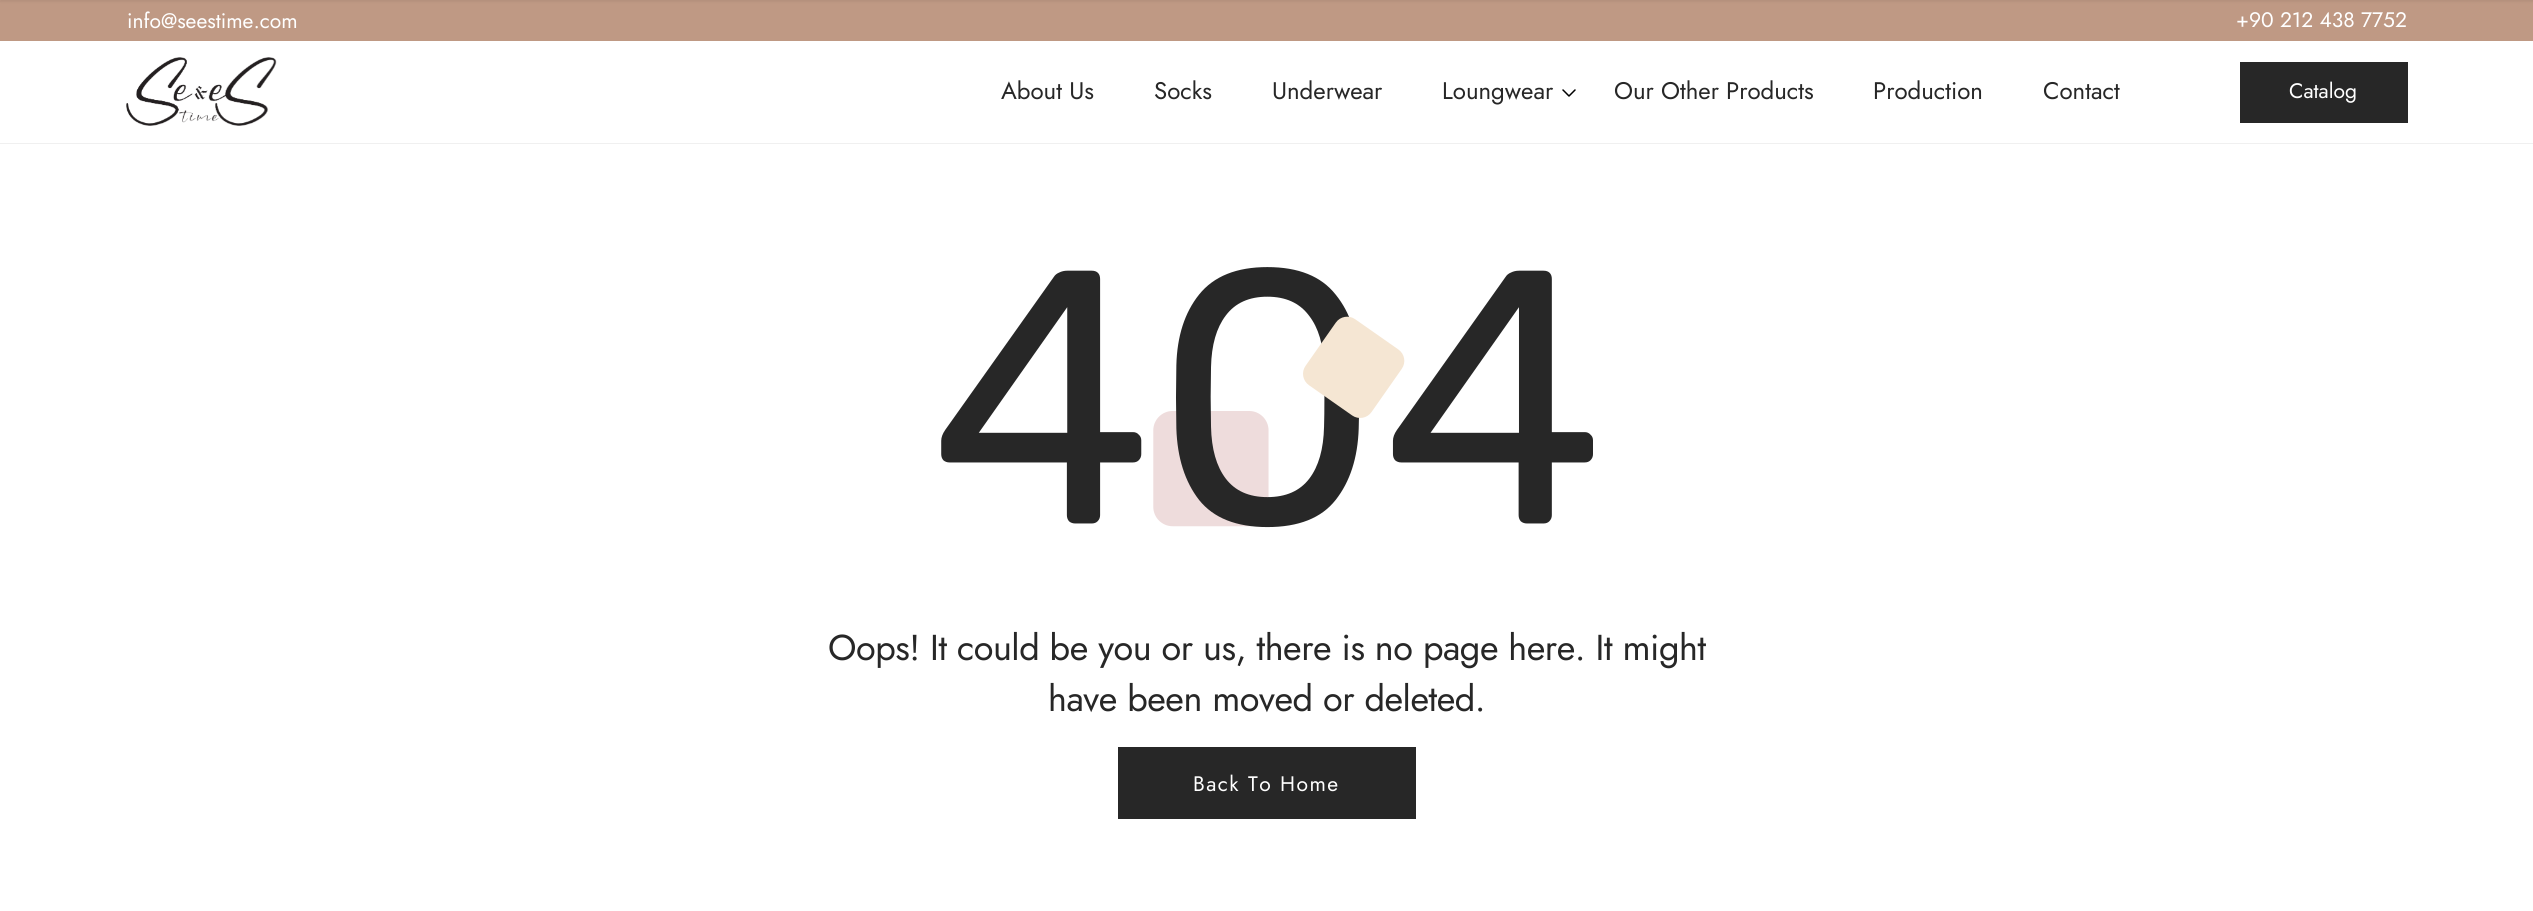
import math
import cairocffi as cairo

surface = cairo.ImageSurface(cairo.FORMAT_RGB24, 2533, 911)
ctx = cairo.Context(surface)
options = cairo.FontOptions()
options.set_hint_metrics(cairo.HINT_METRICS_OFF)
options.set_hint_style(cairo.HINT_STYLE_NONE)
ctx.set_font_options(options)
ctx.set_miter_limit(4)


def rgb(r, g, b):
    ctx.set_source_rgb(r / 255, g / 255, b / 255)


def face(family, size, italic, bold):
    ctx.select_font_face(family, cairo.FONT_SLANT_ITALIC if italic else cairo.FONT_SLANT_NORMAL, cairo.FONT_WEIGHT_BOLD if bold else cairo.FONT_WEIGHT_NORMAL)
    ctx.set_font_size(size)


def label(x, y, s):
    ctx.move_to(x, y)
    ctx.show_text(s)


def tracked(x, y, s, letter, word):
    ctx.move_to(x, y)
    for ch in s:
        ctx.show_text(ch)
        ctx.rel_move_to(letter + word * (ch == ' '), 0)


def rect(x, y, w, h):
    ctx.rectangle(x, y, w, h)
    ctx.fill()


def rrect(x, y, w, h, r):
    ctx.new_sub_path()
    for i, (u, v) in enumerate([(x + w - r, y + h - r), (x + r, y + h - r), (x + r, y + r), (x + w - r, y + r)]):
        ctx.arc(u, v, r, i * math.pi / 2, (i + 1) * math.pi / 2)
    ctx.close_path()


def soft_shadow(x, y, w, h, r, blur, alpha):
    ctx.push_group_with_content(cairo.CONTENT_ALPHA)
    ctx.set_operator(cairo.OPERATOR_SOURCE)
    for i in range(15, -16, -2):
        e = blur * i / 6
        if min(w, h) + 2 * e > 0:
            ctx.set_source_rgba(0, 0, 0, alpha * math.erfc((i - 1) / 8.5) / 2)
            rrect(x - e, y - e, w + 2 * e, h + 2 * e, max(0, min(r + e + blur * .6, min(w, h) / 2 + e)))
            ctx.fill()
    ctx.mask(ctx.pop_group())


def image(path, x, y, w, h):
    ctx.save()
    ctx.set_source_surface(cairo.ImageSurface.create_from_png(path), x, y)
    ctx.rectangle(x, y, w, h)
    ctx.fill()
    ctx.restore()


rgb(255, 255, 255)
ctx.paint()
rgb(240, 240, 240)
ctx.new_path()
ctx.move_to(0, 142)
ctx.line_to(0, 144)
ctx.line_to(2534, 144)
ctx.line_to(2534, 2)
ctx.line_to(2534, 142)
ctx.close_path()
ctx.fill()
rgb(255, 255, 255)
rect(0, 142, 2533, 1)
rgb(191, 153, 132)
rect(0, 0, 2533, 41)
face('Jost', 21, 0, 0)
rgb(255, 255, 255)
label(127, 28, 'info@seestime.com')
label(2236, 27, '+90 212 438 7752')
rgb(0, 0, 0)
soft_shadow(0, -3, 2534, 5, 0, 1, 0.06)
image('image0.png', 126, 57, 151, 69)
face('Jost', 24, 0, 0)
rgb(39, 39, 39)
label(1001, 99, 'About Us')
label(1154, 99, 'Socks')
label(1272, 99, 'Underwear')
label(1442, 99, 'Loungwear')
ctx.new_path()
ctx.move_to(1563, 90)
ctx.line_to(1569, 96)
ctx.line_to(1575, 90)
rgb(0, 0, 0)
ctx.set_line_width(1.5)
ctx.set_line_cap(cairo.LINE_CAP_ROUND)
ctx.set_line_join(cairo.LINE_JOIN_ROUND)
ctx.stroke()
rgb(39, 39, 39)
label(1614, 99, 'Our Other Products')
label(1873, 99, 'Production')
label(2043, 99, 'Contact')
rect(2240, 62, 168, 61)
face('Jost', 21, 0, 0)
rgb(255, 255, 255)
label(2289, 98, 'Catalog')
image('image1.png', 941, 267, 652, 261)
face('Jost', 36, 0, 0)
rgb(39, 39, 39)
tracked(828, 660, 'Oops! It could be you or us, there is no page here. It might', -0.45, 0)
tracked(1048, 711, 'have been moved or deleted.', -0.45, 0)
rect(1118, 747, 298, 72)
face('Jost', 21, 0, 0)
rgb(255, 255, 255)
tracked(1193, 791, 'Back To Home', 1.5, 0)
surface.write_to_png('render.png')
